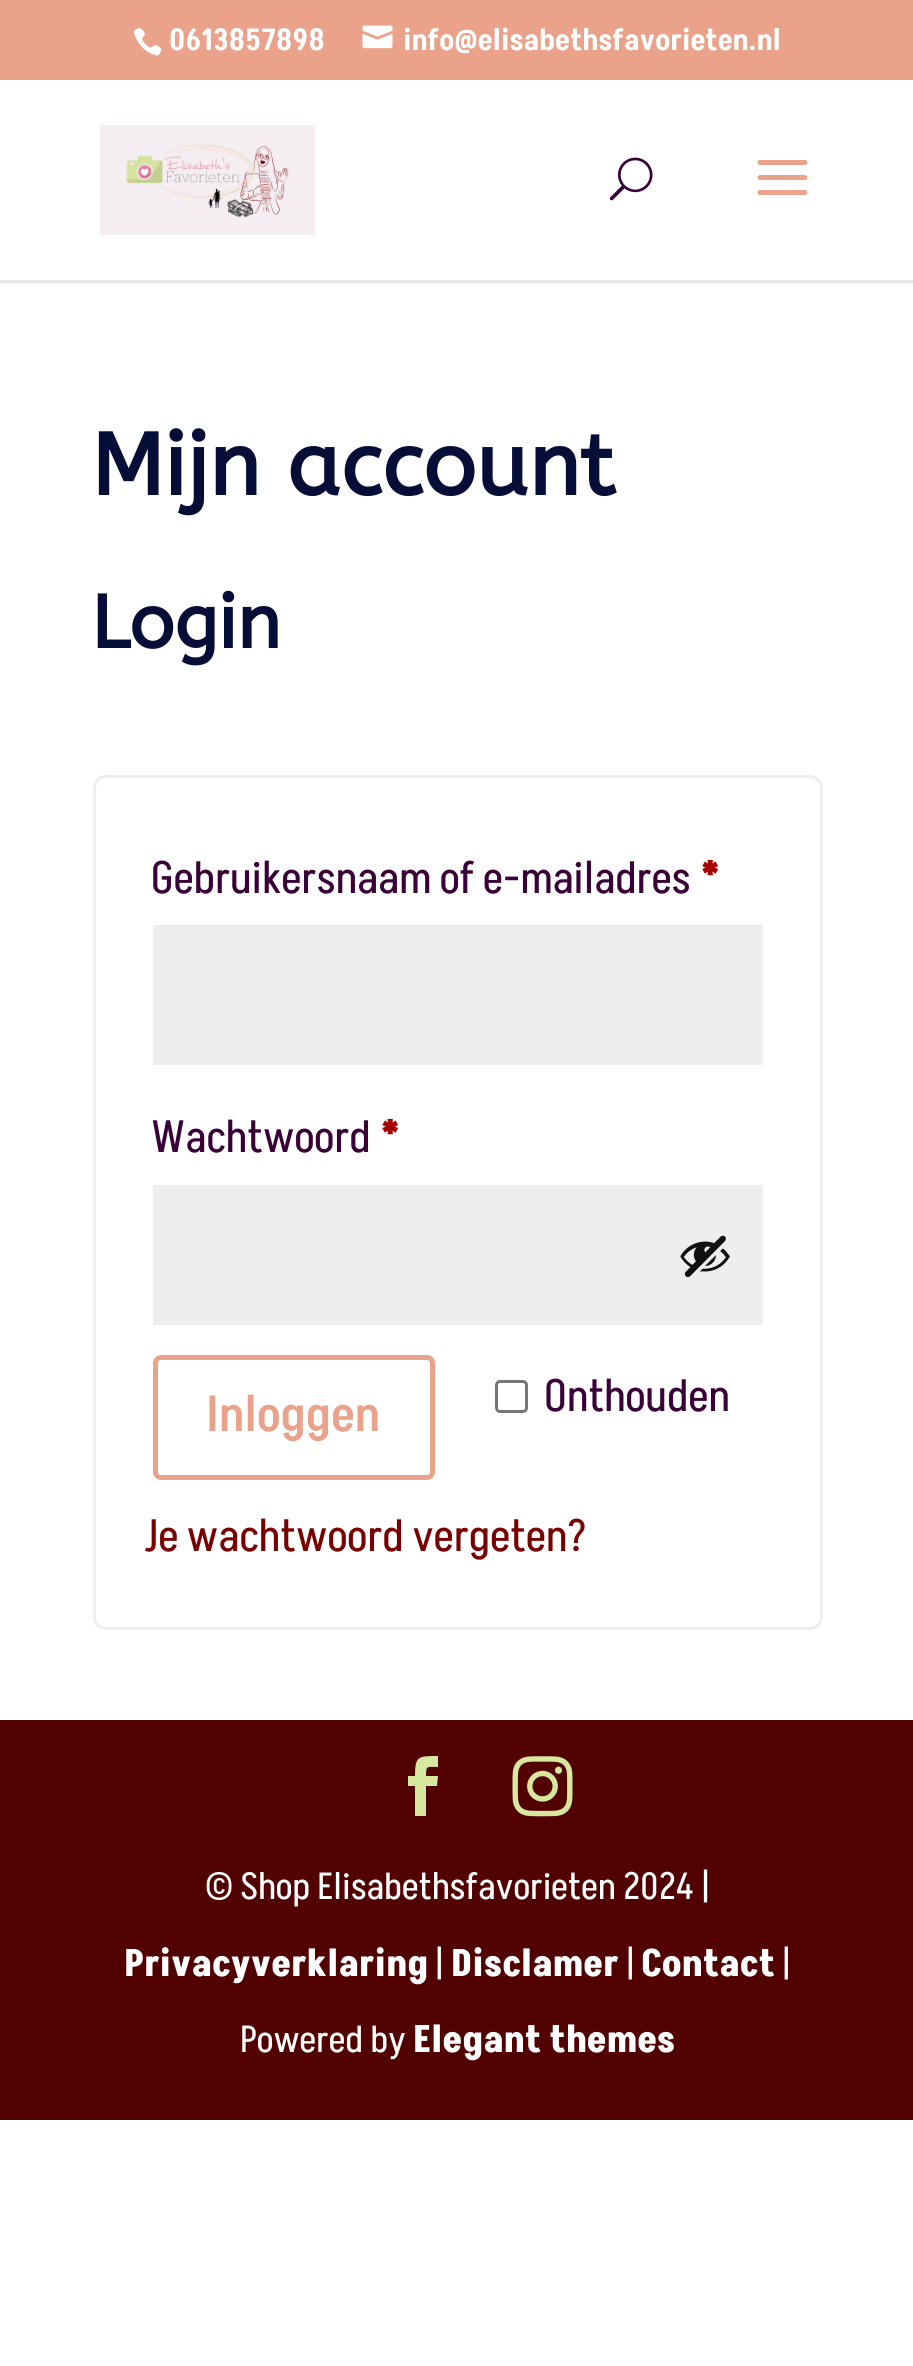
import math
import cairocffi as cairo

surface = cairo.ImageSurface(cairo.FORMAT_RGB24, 913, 2366)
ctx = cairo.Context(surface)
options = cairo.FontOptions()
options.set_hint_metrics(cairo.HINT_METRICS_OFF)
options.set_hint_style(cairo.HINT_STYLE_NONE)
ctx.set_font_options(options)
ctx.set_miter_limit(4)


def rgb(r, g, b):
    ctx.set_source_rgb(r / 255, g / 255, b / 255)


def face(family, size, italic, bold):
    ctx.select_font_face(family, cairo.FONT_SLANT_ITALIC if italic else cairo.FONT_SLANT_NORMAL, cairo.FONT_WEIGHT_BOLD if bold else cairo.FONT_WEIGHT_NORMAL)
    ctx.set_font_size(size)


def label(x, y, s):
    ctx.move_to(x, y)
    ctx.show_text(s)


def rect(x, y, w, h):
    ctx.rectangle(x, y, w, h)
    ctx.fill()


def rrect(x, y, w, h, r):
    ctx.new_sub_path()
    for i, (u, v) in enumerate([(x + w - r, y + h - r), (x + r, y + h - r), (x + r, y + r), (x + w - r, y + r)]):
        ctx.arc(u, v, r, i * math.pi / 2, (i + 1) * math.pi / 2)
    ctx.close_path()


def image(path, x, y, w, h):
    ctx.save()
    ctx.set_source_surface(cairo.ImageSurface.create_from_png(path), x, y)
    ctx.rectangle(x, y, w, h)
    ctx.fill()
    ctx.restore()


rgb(255, 255, 255)
ctx.paint()
rgb(234, 162, 138)
rect(0, 0, 913, 80)
image('image0.png', 133, 28, 29, 28)
face('Akshar SemiBold', 30, 0, 0)
rgb(255, 255, 255)
label(169, 50, '0613857898')
image('image1.png', 362, 25, 31, 24)
label(403, 50, 'info@elisabethsfavorieten.nl')
rgb(230, 230, 230)
rect(0, 280, 913, 3)
image('image2.png', 100, 125, 215, 110)
image('image3.png', 609, 157, 44, 44)
image('image4.png', 757, 160, 51, 35)
face('ABeeZee', 87.5, 0, 1)
rgb(6, 14, 56)
label(91, 495, 'Mijn account')
face('ABeeZee', 75, 0, 1)
label(91, 648, 'Login')
rrect(94.5, 776.5, 727, 852, 11.5)
rgb(238, 238, 238)
ctx.set_line_width(3)
ctx.stroke()
face('Akshar', 45, 0, 0)
rgb(58, 1, 56)
label(151, 893, 'Gebruikersnaam of e-mailadres')
face('Akshar', 45, 0, 1)
rgb(170, 0, 0)
label(700, 893, '*')
rgb(238, 238, 238)
rect(153, 925, 610, 140)
face('Akshar', 45, 0, 0)
rgb(58, 1, 56)
label(151, 1152, 'Wachtwoord')
face('Akshar', 45, 0, 1)
rgb(170, 0, 0)
label(380, 1152, '*')
rgb(238, 238, 238)
rect(153, 1185, 610, 140)
image('image5.png', 680, 1235, 50, 43)
rrect(155.5, 1357.5, 277, 120, 5.5)
rgb(234, 162, 138)
ctx.set_line_width(5)
ctx.stroke()
face('Akshar Medium', 50, 0, 0)
label(206, 1431, 'Inloggen')
rrect(496.5, 1381.5, 30, 30, 3.5)
rgb(118, 118, 118)
ctx.set_line_width(3)
ctx.stroke()
face('Akshar', 45, 0, 0)
rgb(58, 1, 56)
label(544, 1411, 'Onthouden')
rgb(121, 1, 1)
label(144, 1551, 'Je wachtwoord vergeten?')
rgb(82, 1, 1)
rect(0, 1720, 913, 400)
rgb(214, 232, 158)
ctx.new_path()
ctx.move_to(415, 1816)
ctx.line_to(426, 1816)
ctx.line_to(426, 1786)
ctx.line_to(437, 1786)
ctx.line_to(438, 1776)
ctx.line_to(426, 1776)
ctx.curve_to(426, 1765, 427, 1767, 438, 1767)
ctx.line_to(438, 1756)
ctx.curve_to(418, 1756, 415, 1756, 415, 1776)
ctx.line_to(408, 1776)
ctx.line_to(408, 1786)
ctx.line_to(415, 1786)
ctx.close_path()
ctx.fill()
image('image6.png', 512, 1756, 61, 61)
face('Akshar', 37.5, 0, 0)
rgb(255, 255, 255)
label(205, 1899, '© Shop Elisabethsfavorieten 2024 |')
face('Akshar', 37.5, 0, 1)
label(124, 1976, 'Privacyverklaring')
face('Akshar', 37.5, 0, 0)
label(435, 1976, '|')
face('Akshar', 37.5, 0, 1)
label(451, 1976, 'Disclamer')
face('Akshar', 37.5, 0, 0)
label(626, 1976, '|')
face('Akshar', 37.5, 0, 1)
label(641, 1976, 'Contact')
face('Akshar', 37.5, 0, 0)
label(782, 1976, '|')
label(240, 2052, 'Powered by')
face('Akshar', 37.5, 0, 1)
label(413, 2052, 'Elegant themes')
surface.write_to_png('render.png')
